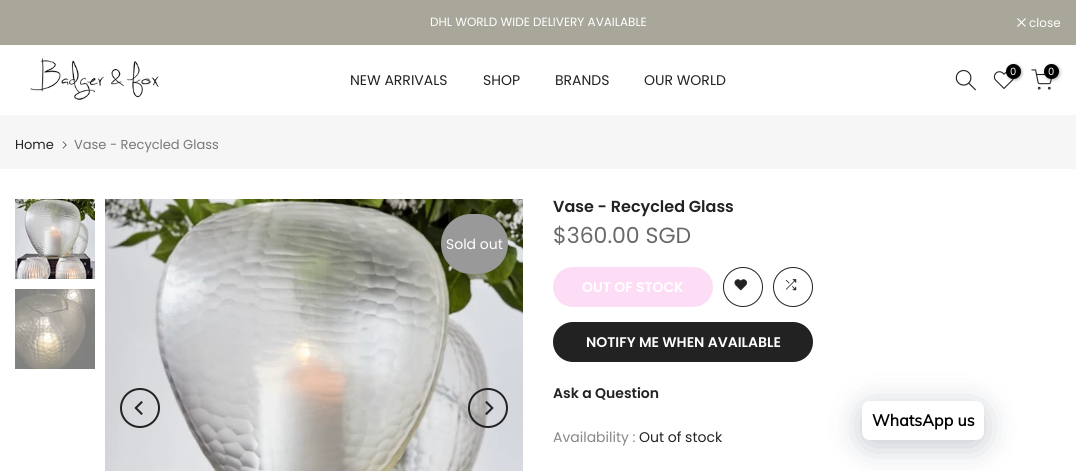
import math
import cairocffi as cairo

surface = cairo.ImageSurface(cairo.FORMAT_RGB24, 1076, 471)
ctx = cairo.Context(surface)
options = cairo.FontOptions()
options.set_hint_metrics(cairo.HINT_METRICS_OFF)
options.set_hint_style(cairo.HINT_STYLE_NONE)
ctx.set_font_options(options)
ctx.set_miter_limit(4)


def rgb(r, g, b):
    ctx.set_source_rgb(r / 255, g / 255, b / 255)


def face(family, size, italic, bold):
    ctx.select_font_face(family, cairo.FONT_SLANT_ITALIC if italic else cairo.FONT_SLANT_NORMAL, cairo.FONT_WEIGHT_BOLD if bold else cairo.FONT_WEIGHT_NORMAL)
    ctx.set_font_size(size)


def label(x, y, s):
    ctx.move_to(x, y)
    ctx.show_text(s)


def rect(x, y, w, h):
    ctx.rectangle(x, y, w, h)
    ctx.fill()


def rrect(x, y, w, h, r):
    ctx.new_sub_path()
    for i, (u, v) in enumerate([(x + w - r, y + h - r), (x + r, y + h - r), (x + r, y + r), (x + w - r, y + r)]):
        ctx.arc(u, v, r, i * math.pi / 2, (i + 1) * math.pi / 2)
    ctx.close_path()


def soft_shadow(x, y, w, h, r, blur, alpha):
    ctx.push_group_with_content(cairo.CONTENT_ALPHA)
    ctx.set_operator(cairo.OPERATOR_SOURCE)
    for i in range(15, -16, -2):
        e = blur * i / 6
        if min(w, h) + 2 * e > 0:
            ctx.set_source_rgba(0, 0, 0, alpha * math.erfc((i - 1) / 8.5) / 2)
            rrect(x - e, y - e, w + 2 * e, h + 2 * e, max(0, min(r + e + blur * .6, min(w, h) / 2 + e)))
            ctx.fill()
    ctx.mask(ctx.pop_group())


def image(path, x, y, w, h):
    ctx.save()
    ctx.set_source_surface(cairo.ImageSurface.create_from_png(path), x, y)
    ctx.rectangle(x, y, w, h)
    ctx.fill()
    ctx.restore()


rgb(255, 255, 255)
ctx.paint()
rgb(169, 167, 154)
rect(0, 0, 1076, 45)
face('Poppins', 12, 0, 0)
rgb(255, 255, 255)
label(430, 26, 'DHL WORLD WIDE DELIVERY AVAILABLE')
ctx.new_path()
ctx.move_to(1025.5, 18.5)
ctx.line_to(1017.5, 26.5)
ctx.move_to(1025.5, 26.5)
ctx.line_to(1017.5, 18.5)
ctx.set_line_width(1.1)
ctx.stroke()
label(1029, 27, 'close')
image('image0.png', 30, 58, 129, 42)
image('image1.png', 955, 69, 21, 22)
image('image2.png', 993, 71, 21, 18)
rgb(0, 0, 0)
soft_shadow(1007, 65, 15, 15, 7.5, 1.5, 0.3)
rgb(0, 0, 0)
ctx.arc(1013.5, 71.5, 7.5, 0, 2 * math.pi)
ctx.fill()
face('Poppins', 10, 0, 0)
rgb(255, 255, 255)
label(1010, 75, '0')
image('image3.png', 1031, 69, 21, 21)
rgb(0, 0, 0)
soft_shadow(1045, 65, 15, 15, 7.5, 1.5, 0.3)
rgb(0, 0, 0)
ctx.arc(1051.5, 71.5, 7.5, 0, 2 * math.pi)
ctx.fill()
rgb(255, 255, 255)
label(1048, 75, '0')
face('Poppins', 14, 0, 0)
rgb(34, 34, 34)
label(350, 85, 'NEW ARRIVALS')
label(483, 85, 'SHOP')
label(555, 85, 'BRANDS')
label(644, 85, 'OUR WORLD')
rgb(246, 246, 246)
rect(0, 115, 1076, 54)
face('Poppins', 13, 0, 0)
rgb(34, 34, 34)
label(15, 149, 'Home')
image('image4.png', 62, 141, 5, 8)
rgb(119, 119, 119)
label(74, 149, 'Vase - Recycled Glass')
image('image5.png', 15, 199, 80, 80)
image('image6.png', 15, 289, 80, 80)
image('image7.png', 105, 199, 418, 272)
ctx.arc(140, 408, 19, 0, 2 * math.pi)
rgb(34, 34, 34)
ctx.set_line_width(2)
ctx.stroke()
image('image8.png', 134, 401, 9, 14)
ctx.arc(488, 408, 19, 0, 2 * math.pi)
ctx.stroke()
image('image9.png', 485, 401, 9, 14)
rgb(153, 153, 153)
rrect(441, 214, 67, 60, 30)
ctx.fill()
face('Poppins', 14, 0, 0)
rgb(255, 255, 255)
label(446, 249, 'Sold out')
face('Poppins SemiBold', 16, 0, 0)
rgb(34, 34, 34)
label(553, 212, 'Vase - Recycled Glass')
face('Poppins', 22, 0, 0)
rgb(105, 105, 105)
label(553, 243, '$360.00 SGD')
rgb(252, 221, 245)
rrect(553, 267, 160, 40, 20)
ctx.fill()
face('Poppins SemiBold', 14, 0, 0)
rgb(255, 255, 255)
label(582, 292, 'OUT OF STOCK')
ctx.new_path()
ctx.arc(743, 287, 19.5, 0, 2 * math.pi)
rgb(34, 34, 34)
ctx.set_line_width(1)
ctx.stroke()
image('image10.png', 734, 279, 13, 12)
ctx.arc(793, 287, 19.5, 0, 2 * math.pi)
ctx.stroke()
image('image11.png', 785, 279, 12, 12)
rrect(553, 322, 260, 40, 20)
ctx.fill()
rgb(255, 255, 255)
label(586, 347, 'NOTIFY ME WHEN AVAILABLE')
rgb(34, 34, 34)
label(553, 398, 'Ask a Question')
face('Poppins', 14, 0, 0)
rgb(135, 135, 135)
label(553, 442, 'Availability :')
rgb(34, 34, 34)
label(639, 442, 'Out of stock')
rgb(0, 18, 46)
soft_shadow(862, 407, 122, 39, 8, 16, 0.24)
rgb(255, 255, 255)
rrect(862, 401, 122, 39, 8)
ctx.fill()
face('Muli', 16, 0, 1)
rgb(0, 0, 0)
label(872, 426, 'WhatsApp us')
surface.write_to_png('render.png')
